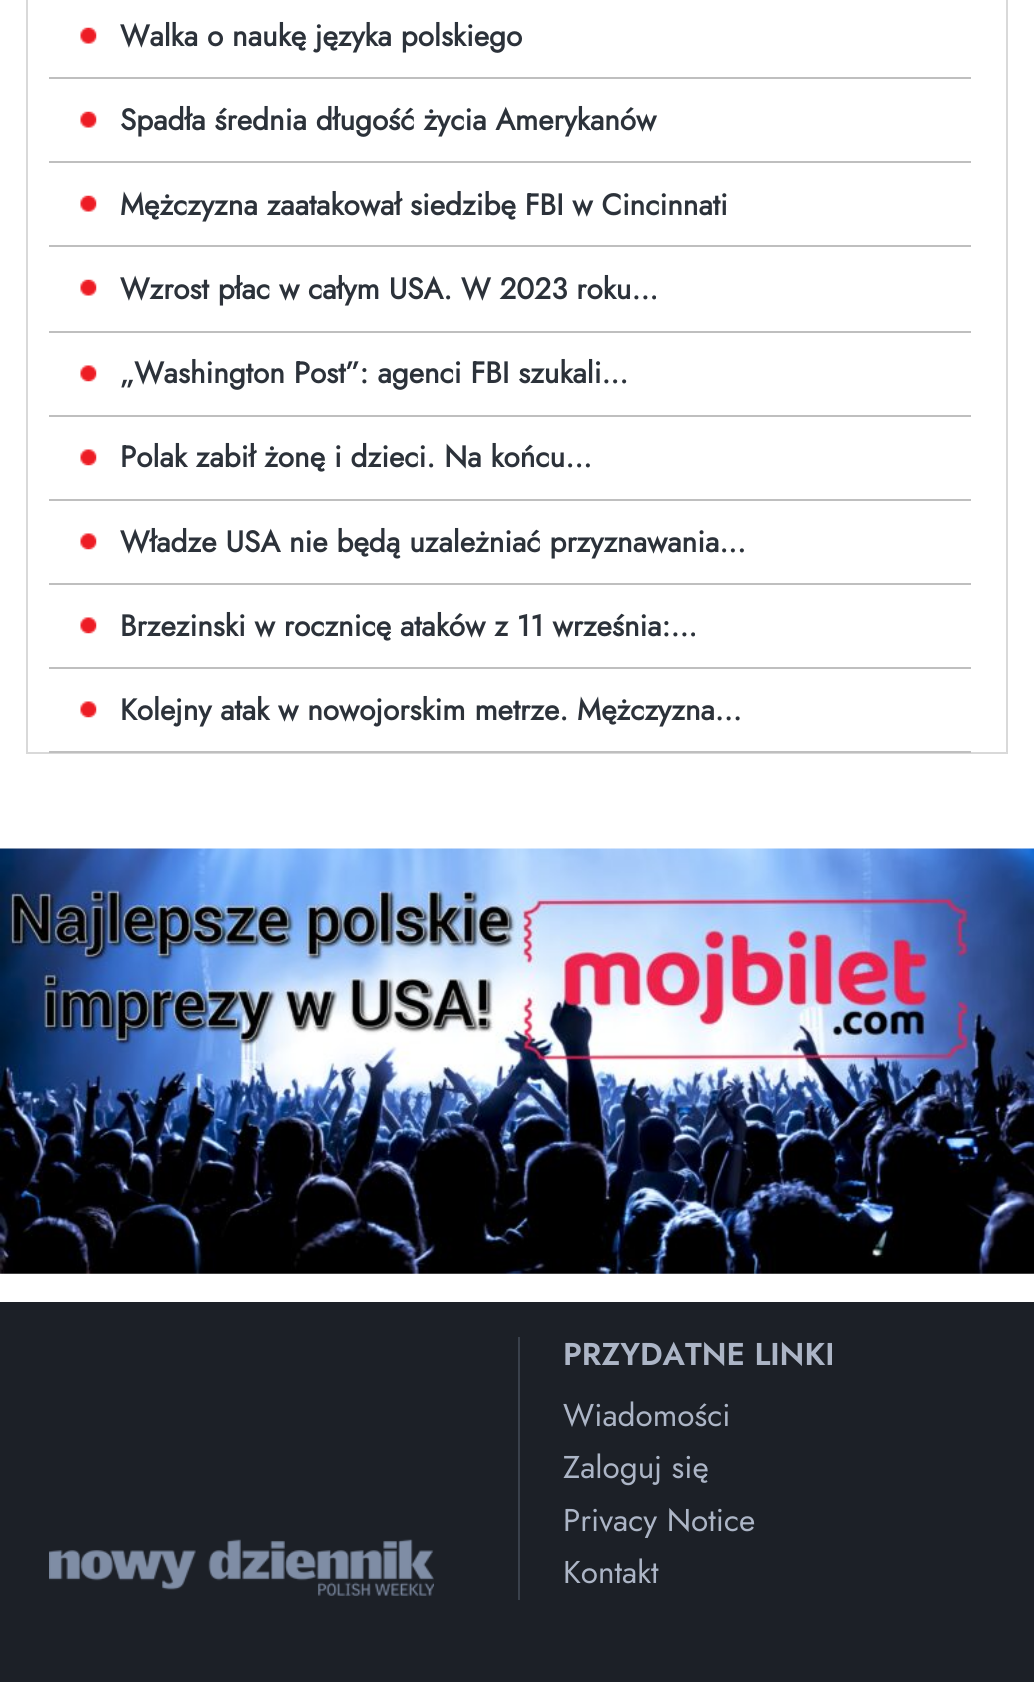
import math
import cairocffi as cairo

surface = cairo.ImageSurface(cairo.FORMAT_RGB24, 1034, 1682)
ctx = cairo.Context(surface)
options = cairo.FontOptions()
options.set_hint_metrics(cairo.HINT_METRICS_OFF)
options.set_hint_style(cairo.HINT_STYLE_NONE)
ctx.set_font_options(options)
ctx.set_miter_limit(4)


def rgb(r, g, b):
    ctx.set_source_rgb(r / 255, g / 255, b / 255)


def face(family, size, italic, bold):
    ctx.select_font_face(family, cairo.FONT_SLANT_ITALIC if italic else cairo.FONT_SLANT_NORMAL, cairo.FONT_WEIGHT_BOLD if bold else cairo.FONT_WEIGHT_NORMAL)
    ctx.set_font_size(size)


def label(x, y, s):
    ctx.move_to(x, y)
    ctx.show_text(s)


def rect(x, y, w, h):
    ctx.rectangle(x, y, w, h)
    ctx.fill()


def image(path, x, y, w, h):
    ctx.save()
    ctx.set_source_surface(cairo.ImageSurface.create_from_png(path), x, y)
    ctx.rectangle(x, y, w, h)
    ctx.fill()
    ctx.restore()


rgb(255, 255, 255)
ctx.paint()
ctx.rectangle(27, -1, 980, 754)
rgb(217, 217, 217)
ctx.stroke()
rgb(191, 191, 191)
rect(49, 77, 922, 2)
image('image0.png', 80, 27, 17, 17)
face('Jost', 29.75, 0, 1)
rgb(44, 50, 58)
label(120, 46, 'Walka o naukę języka polskiego')
rgb(191, 191, 191)
rect(49, 161, 922, 2)
image('image0.png', 80, 111, 17, 17)
rgb(44, 50, 58)
label(120, 130, 'Spadła średnia długość życia Amerykanów')
rgb(191, 191, 191)
rect(49, 245, 922, 2)
image('image0.png', 80, 195, 17, 17)
rgb(44, 50, 58)
label(120, 215, 'Mężczyzna zaatakował siedzibę FBI w Cincinnati')
rgb(191, 191, 191)
rect(49, 331, 922, 2)
image('image0.png', 80, 279, 17, 17)
rgb(44, 50, 58)
label(120, 299, 'Wzrost płac w całym USA. W 2023 roku...')
rgb(191, 191, 191)
rect(49, 415, 922, 2)
image('image1.png', 80, 365, 17, 17)
rgb(44, 50, 58)
label(120, 383, '„Washington Post”: agenci FBI szukali...')
rgb(191, 191, 191)
rect(49, 499, 922, 2)
image('image1.png', 80, 449, 17, 17)
rgb(44, 50, 58)
label(120, 467, 'Polak zabił żonę i dzieci. Na końcu...')
rgb(191, 191, 191)
rect(49, 583, 922, 2)
image('image1.png', 80, 533, 17, 17)
rgb(44, 50, 58)
label(120, 552, 'Władze USA nie będą uzależniać przyznawania...')
rgb(191, 191, 191)
rect(49, 667, 922, 2)
image('image1.png', 80, 617, 17, 17)
rgb(44, 50, 58)
label(120, 636, 'Brzezinski w rocznicę ataków z 11 września:...')
rgb(191, 191, 191)
rect(49, 751, 922, 2)
image('image1.png', 80, 701, 17, 17)
rgb(44, 50, 58)
label(120, 720, 'Kolejny atak w nowojorskim metrze. Mężczyzna...')
image('image2.png', 0, 848, 1034, 426)
rgb(28, 32, 39)
rect(0, 1302, 1034, 380)
image('image3.png', 49, 1539, 385, 57)
rgb(58, 65, 76)
rect(518, 1337, 2, 263)
face('Jost SemiBold', 31.5, 0, 0)
rgb(172, 181, 198)
label(563, 1365, 'PRZYDATNE LINKI')
face('Jost', 31.5, 0, 0)
label(563, 1426, 'Wiadomości')
label(563, 1478, 'Zaloguj się')
label(563, 1531, 'Privacy Notice')
label(563, 1583, 'Kontakt')
surface.write_to_png('render.png')
